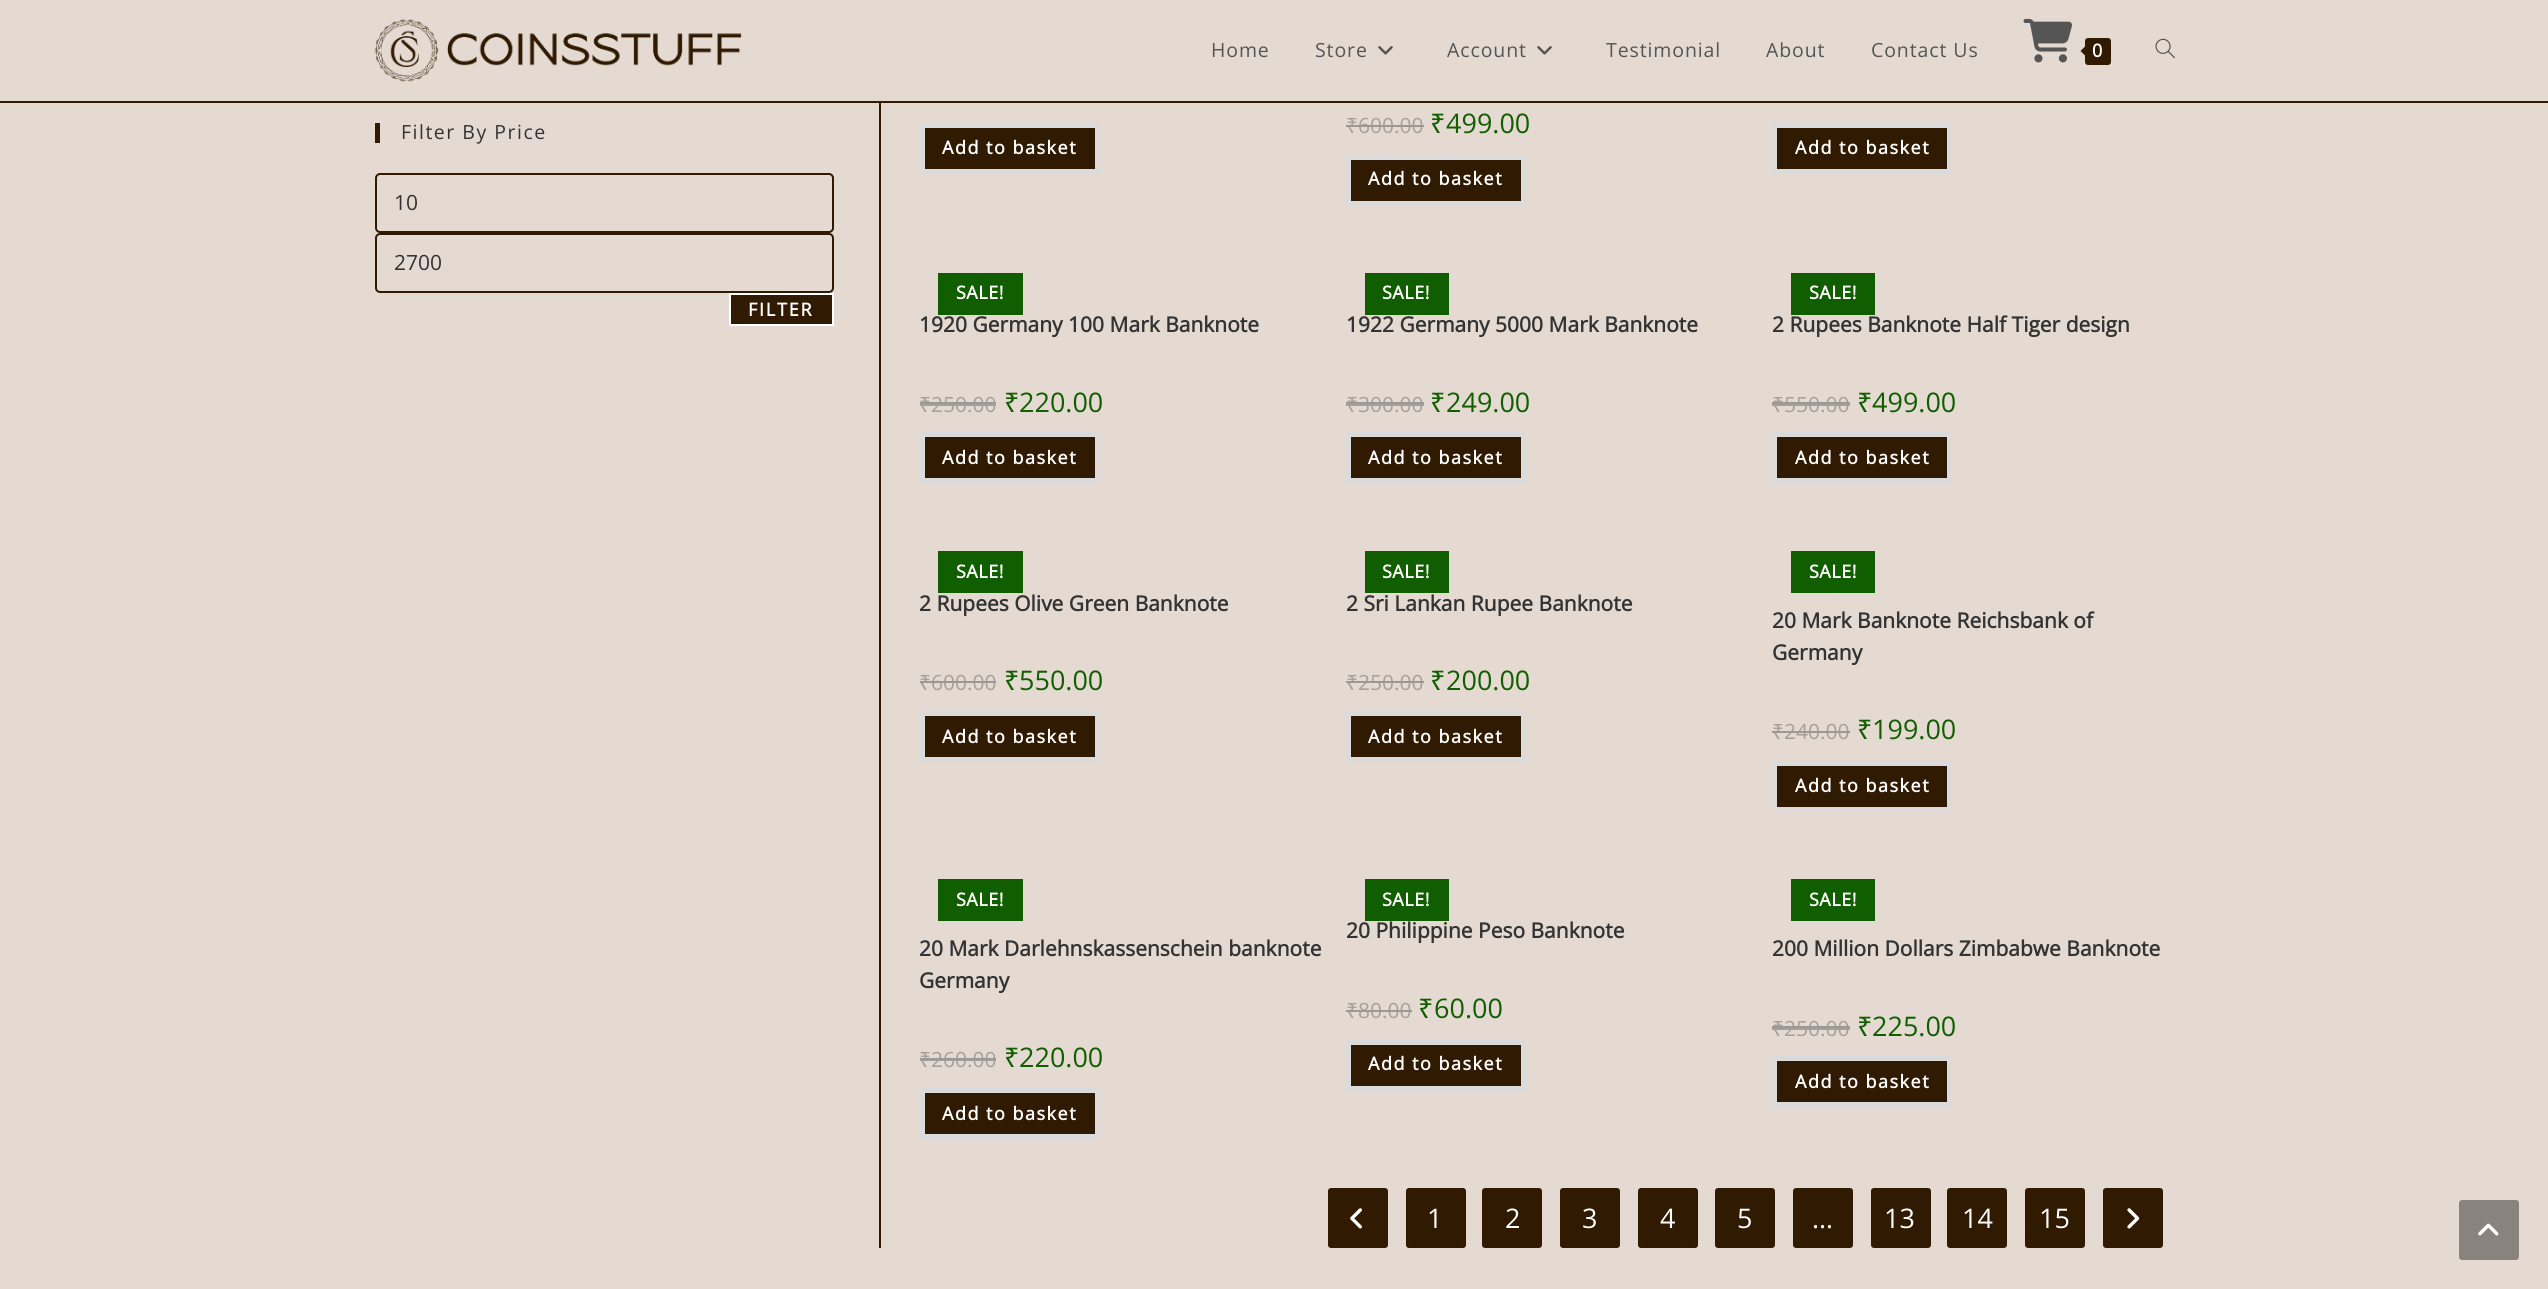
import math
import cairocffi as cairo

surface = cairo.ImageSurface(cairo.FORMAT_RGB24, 2548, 1289)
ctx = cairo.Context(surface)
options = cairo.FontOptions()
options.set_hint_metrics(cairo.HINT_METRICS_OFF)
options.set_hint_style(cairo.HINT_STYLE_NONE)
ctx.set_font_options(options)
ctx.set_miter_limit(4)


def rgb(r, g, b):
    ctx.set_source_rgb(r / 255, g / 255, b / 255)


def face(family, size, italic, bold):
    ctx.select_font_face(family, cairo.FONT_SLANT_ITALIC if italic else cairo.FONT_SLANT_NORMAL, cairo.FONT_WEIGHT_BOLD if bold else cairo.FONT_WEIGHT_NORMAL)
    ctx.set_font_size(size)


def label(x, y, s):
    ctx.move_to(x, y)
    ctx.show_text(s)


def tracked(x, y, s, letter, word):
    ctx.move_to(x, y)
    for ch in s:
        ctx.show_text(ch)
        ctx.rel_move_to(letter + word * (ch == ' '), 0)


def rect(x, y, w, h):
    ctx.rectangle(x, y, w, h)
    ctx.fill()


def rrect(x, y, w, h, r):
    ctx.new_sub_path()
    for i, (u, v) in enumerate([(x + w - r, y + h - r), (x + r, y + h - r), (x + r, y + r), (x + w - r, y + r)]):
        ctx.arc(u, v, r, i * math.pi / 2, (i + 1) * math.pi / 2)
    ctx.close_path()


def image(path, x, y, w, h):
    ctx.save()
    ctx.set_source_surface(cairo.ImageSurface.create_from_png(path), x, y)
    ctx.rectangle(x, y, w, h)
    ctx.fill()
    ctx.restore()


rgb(228, 218, 209)
ctx.paint()
rgb(48, 26, 2)
rect(0, 101, 2548, 2)
image('image0.png', 374, 19, 368, 63)
face('Open Sans', 19.5, 0, 0)
rgb(85, 85, 85)
tracked(1211, 57, 'Home', 0.9, 0)
tracked(1315, 57, 'Store', 0.9, 0)
image('image1.png', 1378, 46, 15, 9)
tracked(1447, 57, 'Account', 0.9, 0)
image('image1.png', 1537, 46, 15, 9)
tracked(1606, 57, 'Testimonial', 0.9, 0)
tracked(1766, 57, 'About', 0.9, 0)
tracked(1871, 57, 'Contact Us', 0.9, 0)
image('image2.png', 2023, 18, 49, 45)
rgb(48, 26, 2)
rrect(2085, 38, 26, 27, 3)
ctx.fill()
ctx.new_path()
ctx.move_to(2088, 43.5)
ctx.line_to(2088, 58.5)
ctx.line_to(2080.5, 51)
ctx.close_path()
ctx.fill()
face('Open Sans', 18, 0, 1)
rgb(255, 255, 255)
label(2092, 57, '0')
image('image3.png', 2155, 38, 20, 21)
rgb(48, 26, 2)
rect(375, 123, 5, 20)
face('Open Sans', 19.5, 0, 0)
rgb(51, 51, 51)
tracked(401, 139, 'Filter By Price', 1.5, 0)
rrect(376, 174, 457, 58, 4)
rgb(48, 26, 2)
ctx.stroke()
face('Open Sans', 21, 0, 0)
rgb(51, 51, 51)
label(394, 210, '10')
rrect(376, 234, 457, 58, 4)
rgb(48, 26, 2)
ctx.stroke()
rgb(51, 51, 51)
label(394, 270, '2700')
rgb(48, 26, 2)
ctx.rectangle(730, 294, 103, 31)
ctx.fill_preserve()
rgb(255, 255, 255)
ctx.stroke()
face('Open Sans', 18, 0, 1)
tracked(748, 316, 'FILTER', 1.75, 0)
rgb(48, 26, 2)
rect(879, 103, 2, 1145)
ctx.rectangle(922.5, 125.5, 175, 46)
ctx.fill_preserve()
rgb(219, 219, 219)
ctx.set_line_width(5)
ctx.stroke()
rgb(255, 255, 255)
tracked(942, 154, 'Add to basket', 1.5, 0)
face('Noto Sans', 21, 0, 0)
rgb(165, 160, 156)
label(1346, 133, '₹')
rgb(157, 152, 147)
rect(1346, 125, 12, 2)
face('Open Sans', 21, 0, 0)
rgb(165, 160, 156)
label(1358, 133, '600.00')
rgb(157, 152, 147)
rect(1358, 125, 66, 2)
face('Noto Sans', 27, 0, 0)
rgb(17, 94, 0)
label(1430, 133, '₹')
face('Open Sans', 27, 0, 0)
label(1446, 133, '499.00')
rgb(48, 26, 2)
ctx.rectangle(1348.5, 157.5, 175, 46)
ctx.fill_preserve()
rgb(219, 219, 219)
ctx.stroke()
face('Open Sans', 18, 0, 1)
rgb(255, 255, 255)
tracked(1368, 185, 'Add to basket', 1.5, 0)
rgb(48, 26, 2)
ctx.rectangle(1774.5, 125.5, 175, 46)
ctx.fill_preserve()
rgb(219, 219, 219)
ctx.stroke()
rgb(255, 255, 255)
tracked(1795, 154, 'Add to basket', 1.5, 0)
rgb(17, 94, 0)
rect(938, 273, 85, 42)
rgb(255, 255, 255)
tracked(956, 299, 'SALE!', 0.5, 0)
face('Open Sans', 21, 0, 1)
rgb(51, 51, 51)
label(919, 332, '1920 Germany 100 Mark Banknote')
face('Noto Sans', 21, 0, 0)
rgb(165, 160, 156)
label(919, 412, '₹')
rect(920, 404, 12, 2)
rgb(157, 152, 147)
rect(920, 402, 12, 2)
face('Open Sans', 21, 0, 0)
rgb(165, 160, 156)
label(931, 412, '250.00')
rect(932, 404, 64, 2)
rgb(157, 152, 147)
rect(932, 402, 64, 2)
face('Noto Sans', 27, 0, 0)
rgb(17, 94, 0)
label(1004, 412, '₹')
face('Open Sans', 27, 0, 0)
label(1019, 412, '220.00')
rgb(48, 26, 2)
ctx.rectangle(922.5, 434.5, 175, 46)
ctx.fill_preserve()
rgb(219, 219, 219)
ctx.stroke()
face('Open Sans', 18, 0, 1)
rgb(255, 255, 255)
tracked(942, 464, 'Add to basket', 1.5, 0)
rgb(17, 94, 0)
rect(1365, 273, 84, 42)
rgb(255, 255, 255)
tracked(1382, 299, 'SALE!', 0.5, 0)
face('Open Sans', 21, 0, 1)
rgb(51, 51, 51)
label(1346, 332, '1922 Germany 5000 Mark Banknote')
face('Noto Sans', 21, 0, 0)
rgb(165, 160, 156)
label(1346, 412, '₹')
rect(1346, 404, 12, 2)
rgb(157, 152, 147)
rect(1346, 402, 12, 2)
face('Open Sans', 21, 0, 0)
rgb(165, 160, 156)
label(1358, 412, '300.00')
rect(1358, 404, 66, 2)
rgb(157, 152, 147)
rect(1358, 402, 66, 2)
face('Noto Sans', 27, 0, 0)
rgb(17, 94, 0)
label(1430, 412, '₹')
face('Open Sans', 27, 0, 0)
label(1446, 412, '249.00')
rgb(48, 26, 2)
ctx.rectangle(1348.5, 434.5, 175, 46)
ctx.fill_preserve()
rgb(219, 219, 219)
ctx.stroke()
face('Open Sans', 18, 0, 1)
rgb(255, 255, 255)
tracked(1368, 464, 'Add to basket', 1.5, 0)
rgb(17, 94, 0)
rect(1791, 273, 84, 42)
rgb(255, 255, 255)
tracked(1809, 299, 'SALE!', 0.5, 0)
face('Open Sans', 21, 0, 1)
rgb(51, 51, 51)
label(1772, 332, '2 Rupees Banknote Half Tiger design')
face('Noto Sans', 21, 0, 0)
rgb(165, 160, 156)
label(1772, 412, '₹')
rect(1772, 404, 12, 2)
rgb(157, 152, 147)
rect(1772, 402, 12, 2)
face('Open Sans', 21, 0, 0)
rgb(165, 160, 156)
label(1784, 412, '550.00')
rect(1784, 404, 66, 2)
rgb(157, 152, 147)
rect(1784, 402, 66, 2)
face('Noto Sans', 27, 0, 0)
rgb(17, 94, 0)
label(1857, 412, '₹')
face('Open Sans', 27, 0, 0)
label(1872, 412, '499.00')
rgb(48, 26, 2)
ctx.rectangle(1774.5, 434.5, 175, 46)
ctx.fill_preserve()
rgb(219, 219, 219)
ctx.stroke()
face('Open Sans', 18, 0, 1)
rgb(255, 255, 255)
tracked(1795, 464, 'Add to basket', 1.5, 0)
rgb(17, 94, 0)
rect(938, 551, 85, 42)
rgb(255, 255, 255)
tracked(956, 578, 'SALE!', 0.5, 0)
face('Open Sans', 21, 0, 1)
rgb(51, 51, 51)
label(919, 611, '2 Rupees Olive Green Banknote')
face('Noto Sans', 21, 0, 0)
rgb(165, 160, 156)
label(919, 690, '₹')
rgb(157, 152, 147)
rect(920, 681, 12, 2)
face('Open Sans', 21, 0, 0)
rgb(165, 160, 156)
label(931, 690, '600.00')
rgb(157, 152, 147)
rect(932, 681, 64, 2)
face('Noto Sans', 27, 0, 0)
rgb(17, 94, 0)
label(1004, 690, '₹')
face('Open Sans', 27, 0, 0)
label(1019, 690, '550.00')
rgb(48, 26, 2)
ctx.rectangle(922.5, 713.5, 175, 46)
ctx.fill_preserve()
rgb(219, 219, 219)
ctx.stroke()
face('Open Sans', 18, 0, 1)
rgb(255, 255, 255)
tracked(942, 743, 'Add to basket', 1.5, 0)
rgb(17, 94, 0)
rect(1365, 551, 84, 42)
rgb(255, 255, 255)
tracked(1382, 578, 'SALE!', 0.5, 0)
face('Open Sans', 21, 0, 1)
rgb(51, 51, 51)
label(1346, 611, '2 Sri Lankan Rupee Banknote')
face('Noto Sans', 21, 0, 0)
rgb(165, 160, 156)
label(1346, 690, '₹')
rgb(157, 152, 147)
rect(1346, 681, 12, 2)
face('Open Sans', 21, 0, 0)
rgb(165, 160, 156)
label(1358, 690, '250.00')
rgb(157, 152, 147)
rect(1358, 681, 66, 2)
face('Noto Sans', 27, 0, 0)
rgb(17, 94, 0)
label(1430, 690, '₹')
face('Open Sans', 27, 0, 0)
label(1446, 690, '200.00')
rgb(48, 26, 2)
ctx.rectangle(1348.5, 713.5, 175, 46)
ctx.fill_preserve()
rgb(219, 219, 219)
ctx.stroke()
face('Open Sans', 18, 0, 1)
rgb(255, 255, 255)
tracked(1368, 743, 'Add to basket', 1.5, 0)
rgb(17, 94, 0)
rect(1791, 551, 84, 42)
rgb(255, 255, 255)
tracked(1809, 578, 'SALE!', 0.5, 0)
face('Open Sans', 21, 0, 1)
rgb(51, 51, 51)
label(1772, 628, '20 Mark Banknote Reichsbank of')
label(1772, 660, 'Germany')
face('Noto Sans', 21, 0, 0)
rgb(165, 160, 156)
label(1772, 739, '₹')
rgb(157, 152, 147)
rect(1772, 731, 12, 2)
face('Open Sans', 21, 0, 0)
rgb(165, 160, 156)
label(1784, 739, '240.00')
rgb(157, 152, 147)
rect(1784, 731, 66, 2)
face('Noto Sans', 27, 0, 0)
rgb(17, 94, 0)
label(1857, 739, '₹')
face('Open Sans', 27, 0, 0)
label(1872, 739, '199.00')
rgb(48, 26, 2)
ctx.rectangle(1774.5, 763.5, 175, 46)
ctx.fill_preserve()
rgb(219, 219, 219)
ctx.stroke()
face('Open Sans', 18, 0, 1)
rgb(255, 255, 255)
tracked(1795, 792, 'Add to basket', 1.5, 0)
rgb(17, 94, 0)
rect(938, 879, 85, 42)
rgb(255, 255, 255)
tracked(956, 906, 'SALE!', 0.5, 0)
face('Open Sans', 21, 0, 1)
rgb(51, 51, 51)
label(919, 956, '20 Mark Darlehnskassenschein banknote')
label(919, 988, 'Germany')
face('Noto Sans', 21, 0, 0)
rgb(165, 160, 156)
label(919, 1067, '₹')
rect(920, 1060, 12, 1)
rgb(157, 152, 147)
rect(920, 1058, 12, 2)
face('Open Sans', 21, 0, 0)
rgb(165, 160, 156)
label(931, 1067, '260.00')
rect(932, 1060, 64, 1)
rgb(157, 152, 147)
rect(932, 1058, 64, 2)
face('Noto Sans', 27, 0, 0)
rgb(17, 94, 0)
label(1004, 1067, '₹')
face('Open Sans', 27, 0, 0)
label(1019, 1067, '220.00')
rgb(48, 26, 2)
ctx.rectangle(922.5, 1090.5, 175, 46)
ctx.fill_preserve()
rgb(219, 219, 219)
ctx.stroke()
face('Open Sans', 18, 0, 1)
rgb(255, 255, 255)
tracked(942, 1120, 'Add to basket', 1.5, 0)
rgb(17, 94, 0)
rect(1365, 879, 84, 42)
rgb(255, 255, 255)
tracked(1382, 906, 'SALE!', 0.5, 0)
face('Open Sans', 21, 0, 1)
rgb(51, 51, 51)
label(1346, 938, '20 Philippine Peso Banknote')
face('Noto Sans', 21, 0, 0)
rgb(165, 160, 156)
label(1346, 1018, '₹')
rgb(157, 152, 147)
rect(1346, 1010, 12, 2)
face('Open Sans', 21, 0, 0)
rgb(165, 160, 156)
label(1358, 1018, '80.00')
rgb(157, 152, 147)
rect(1358, 1010, 54, 2)
face('Noto Sans', 27, 0, 0)
rgb(17, 94, 0)
label(1418, 1018, '₹')
face('Open Sans', 27, 0, 0)
label(1434, 1018, '60.00')
rgb(48, 26, 2)
ctx.rectangle(1348.5, 1042.5, 175, 46)
ctx.fill_preserve()
rgb(219, 219, 219)
ctx.stroke()
face('Open Sans', 18, 0, 1)
rgb(255, 255, 255)
tracked(1368, 1070, 'Add to basket', 1.5, 0)
rgb(17, 94, 0)
rect(1791, 879, 84, 42)
rgb(255, 255, 255)
tracked(1809, 906, 'SALE!', 0.5, 0)
face('Open Sans', 21, 0, 1)
rgb(51, 51, 51)
label(1772, 956, '200 Million Dollars Zimbabwe Banknote')
face('Noto Sans', 21, 0, 0)
rgb(165, 160, 156)
label(1772, 1036, '₹')
rect(1772, 1028, 12, 2)
rgb(157, 152, 147)
rect(1772, 1026, 12, 2)
face('Open Sans', 21, 0, 0)
rgb(165, 160, 156)
label(1784, 1036, '250.00')
rect(1784, 1028, 66, 2)
rgb(157, 152, 147)
rect(1784, 1026, 66, 2)
face('Noto Sans', 27, 0, 0)
rgb(17, 94, 0)
label(1857, 1036, '₹')
face('Open Sans', 27, 0, 0)
label(1872, 1036, '225.00')
rgb(48, 26, 2)
ctx.rectangle(1774.5, 1058.5, 175, 46)
ctx.fill_preserve()
rgb(219, 219, 219)
ctx.stroke()
face('Open Sans', 18, 0, 1)
rgb(255, 255, 255)
tracked(1795, 1088, 'Add to basket', 1.5, 0)
rgb(48, 26, 2)
rrect(1329, 1189, 58, 58, 2)
ctx.fill_preserve()
ctx.set_line_width(2)
ctx.stroke()
image('image4.png', 1350, 1208, 12, 21)
rrect(1407, 1189, 58, 58, 2)
ctx.fill_preserve()
ctx.stroke()
face('Open Sans', 27, 0, 0)
rgb(255, 255, 255)
label(1427, 1228, '1')
rgb(48, 26, 2)
rrect(1483, 1189, 58, 58, 2)
ctx.fill_preserve()
ctx.stroke()
rgb(255, 255, 255)
label(1505, 1228, '2')
rgb(48, 26, 2)
rrect(1561, 1189, 58, 58, 2)
ctx.fill_preserve()
ctx.stroke()
rgb(255, 255, 255)
label(1582, 1228, '3')
rgb(48, 26, 2)
rrect(1639, 1189, 58, 58, 2)
ctx.fill_preserve()
ctx.stroke()
rgb(255, 255, 255)
label(1660, 1228, '4')
rgb(48, 26, 2)
rrect(1716, 1189, 58, 58, 2)
ctx.fill_preserve()
ctx.stroke()
rgb(255, 255, 255)
label(1737, 1228, '5')
rgb(48, 26, 2)
rrect(1794, 1189, 58, 58, 2)
ctx.fill_preserve()
ctx.stroke()
rgb(255, 255, 255)
label(1812, 1228, '…')
rgb(48, 26, 2)
rrect(1872, 1189, 58, 58, 2)
ctx.fill_preserve()
ctx.stroke()
rgb(255, 255, 255)
label(1884, 1228, '13')
rgb(48, 26, 2)
rrect(1948, 1189, 58, 58, 2)
ctx.fill_preserve()
ctx.stroke()
rgb(255, 255, 255)
label(1962, 1228, '14')
rgb(48, 26, 2)
rrect(2026, 1189, 58, 58, 2)
ctx.fill_preserve()
ctx.stroke()
rgb(255, 255, 255)
label(2039, 1228, '15')
rgb(48, 26, 2)
rrect(2104, 1189, 58, 58, 2)
ctx.fill_preserve()
ctx.stroke()
image('image5.png', 2127, 1208, 13, 21)
rgb(137, 131, 125)
rrect(2459, 1200, 60, 60, 3)
ctx.fill()
image('image6.png', 2478, 1223, 21, 13)
surface.write_to_png('render.png')
